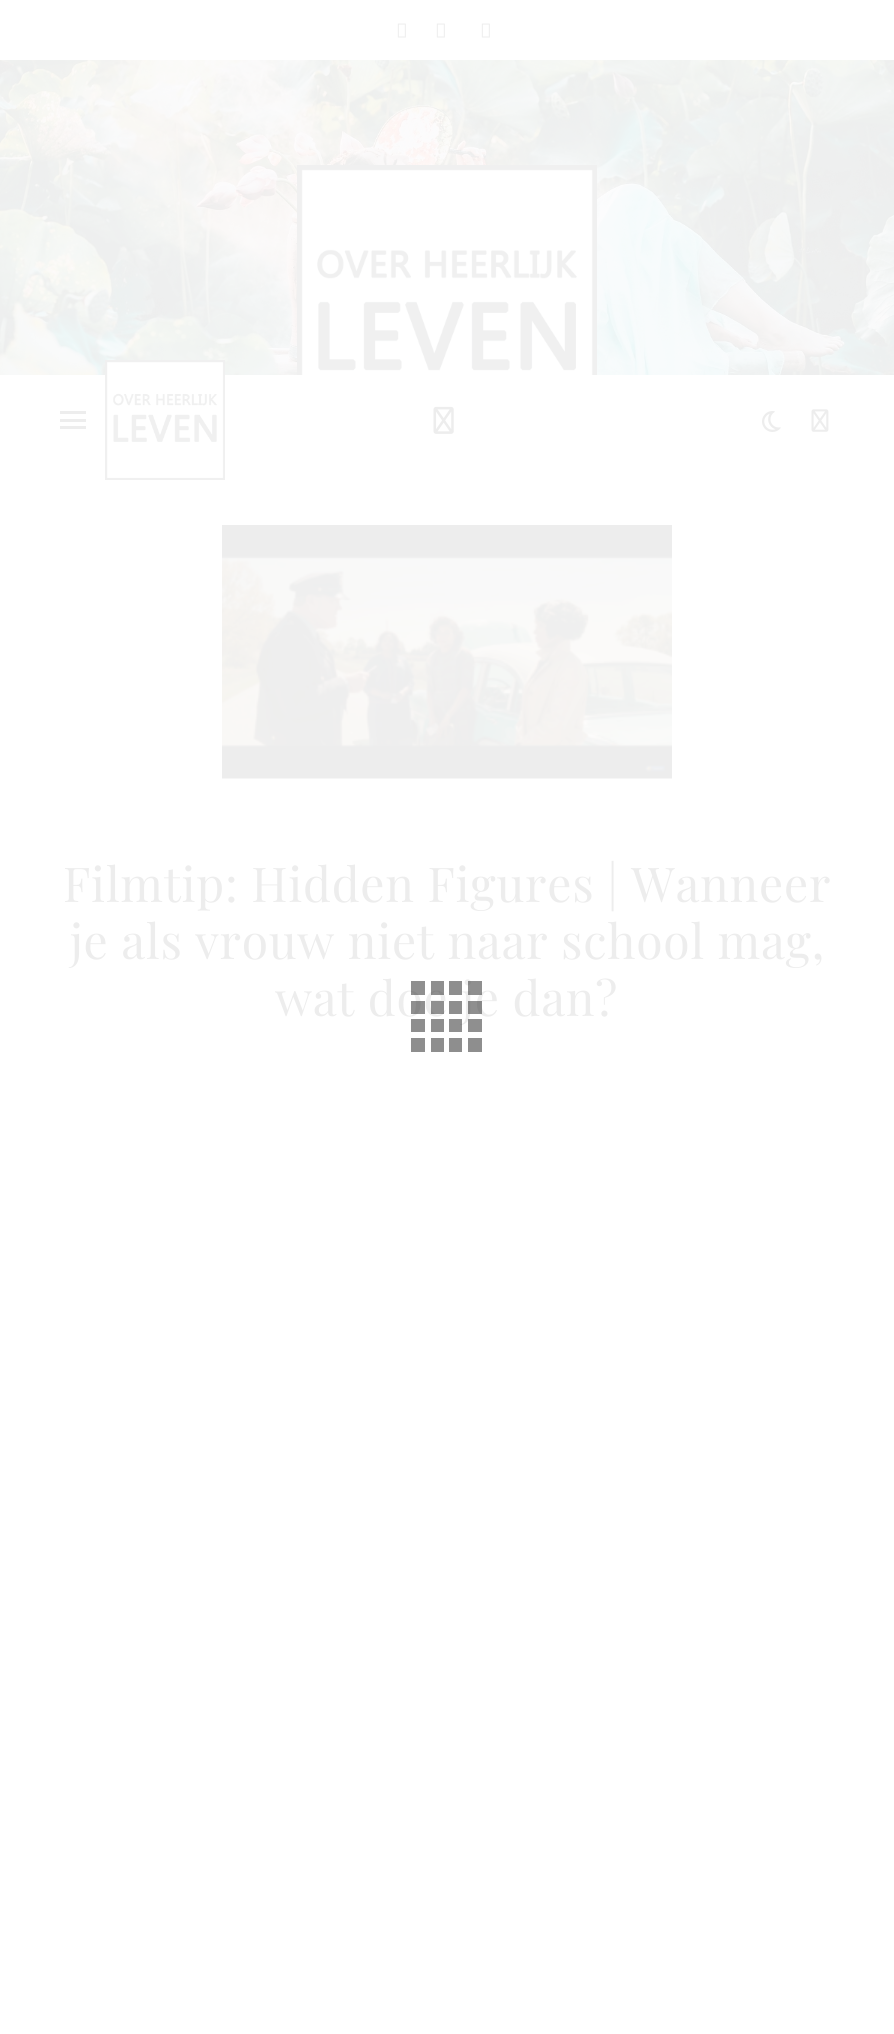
import math
import cairocffi as cairo

surface = cairo.ImageSurface(cairo.FORMAT_RGB24, 894, 2034)
ctx = cairo.Context(surface)
options = cairo.FontOptions()
options.set_hint_metrics(cairo.HINT_METRICS_OFF)
options.set_hint_style(cairo.HINT_STYLE_NONE)
ctx.set_font_options(options)
ctx.set_miter_limit(4)


def rgb(r, g, b):
    ctx.set_source_rgb(r / 255, g / 255, b / 255)


def face(family, size, italic, bold):
    ctx.select_font_face(family, cairo.FONT_SLANT_ITALIC if italic else cairo.FONT_SLANT_NORMAL, cairo.FONT_WEIGHT_BOLD if bold else cairo.FONT_WEIGHT_NORMAL)
    ctx.set_font_size(size)


def tracked(x, y, s, letter, word):
    ctx.move_to(x, y)
    for ch in s:
        ctx.show_text(ch)
        ctx.rel_move_to(letter + word * (ch == ' '), 0)


def rect(x, y, w, h):
    ctx.rectangle(x, y, w, h)
    ctx.fill()


def image(path, x, y, w, h):
    ctx.save()
    ctx.set_source_surface(cairo.ImageSurface.create_from_png(path), x, y)
    ctx.rectangle(x, y, w, h)
    ctx.fill()
    ctx.restore()


rgb(255, 255, 255)
ctx.paint()
image('image0.png', 397, 23, 9, 15)
image('image0.png', 436, 23, 9, 15)
image('image0.png', 481, 23, 9, 15)
image('image1.png', 0, 60, 894, 315)
image('image2.png', 297, 165, 300, 210)
rgb(237, 237, 237)
rect(60, 411, 26, 3)
rect(60, 419, 26, 3)
rect(60, 426, 26, 3)
image('image3.png', 105, 360, 120, 120)
image('image4.png', 433, 406, 21, 28)
image('image5.png', 762, 411, 19, 21)
image('image6.png', 811, 409, 18, 23)
image('image7.png', 222, 525, 450, 254)
face('Playfair Display', 48, 0, 0)
tracked(63, 902, 'Filmtip: Hidden Figures | Wanneer', 0.75, 0)
tracked(70, 959, 'je als vrouw niet naar school mag,', 0.75, 0)
tracked(275, 1016, 'wat doe je dan?', 0.75, 0)
ctx.set_source_rgba(0.2, 0.2, 0.2, 0.55)
rect(411, 981, 14, 14)
rect(431, 981, 13, 14)
rgb(142, 142, 142)
rect(449, 981, 13, 14)
ctx.set_source_rgba(0.2, 0.2, 0.2, 0.55)
rect(468, 981, 14, 14)
rect(411, 1001, 14, 13)
rect(431, 1001, 13, 13)
rgb(142, 142, 142)
rect(449, 1001, 13, 13)
ctx.set_source_rgba(0.2, 0.2, 0.2, 0.55)
rect(468, 1001, 14, 13)
rgb(142, 142, 142)
rect(411, 1019, 14, 13)
rect(431, 1019, 13, 13)
ctx.set_source_rgba(0.2, 0.2, 0.2, 0.55)
rect(449, 1019, 13, 13)
rect(468, 1019, 14, 13)
rgb(142, 142, 142)
rect(411, 1038, 14, 14)
rect(431, 1038, 13, 14)
rect(449, 1038, 13, 14)
rect(468, 1038, 14, 14)
surface.write_to_png('render.png')
